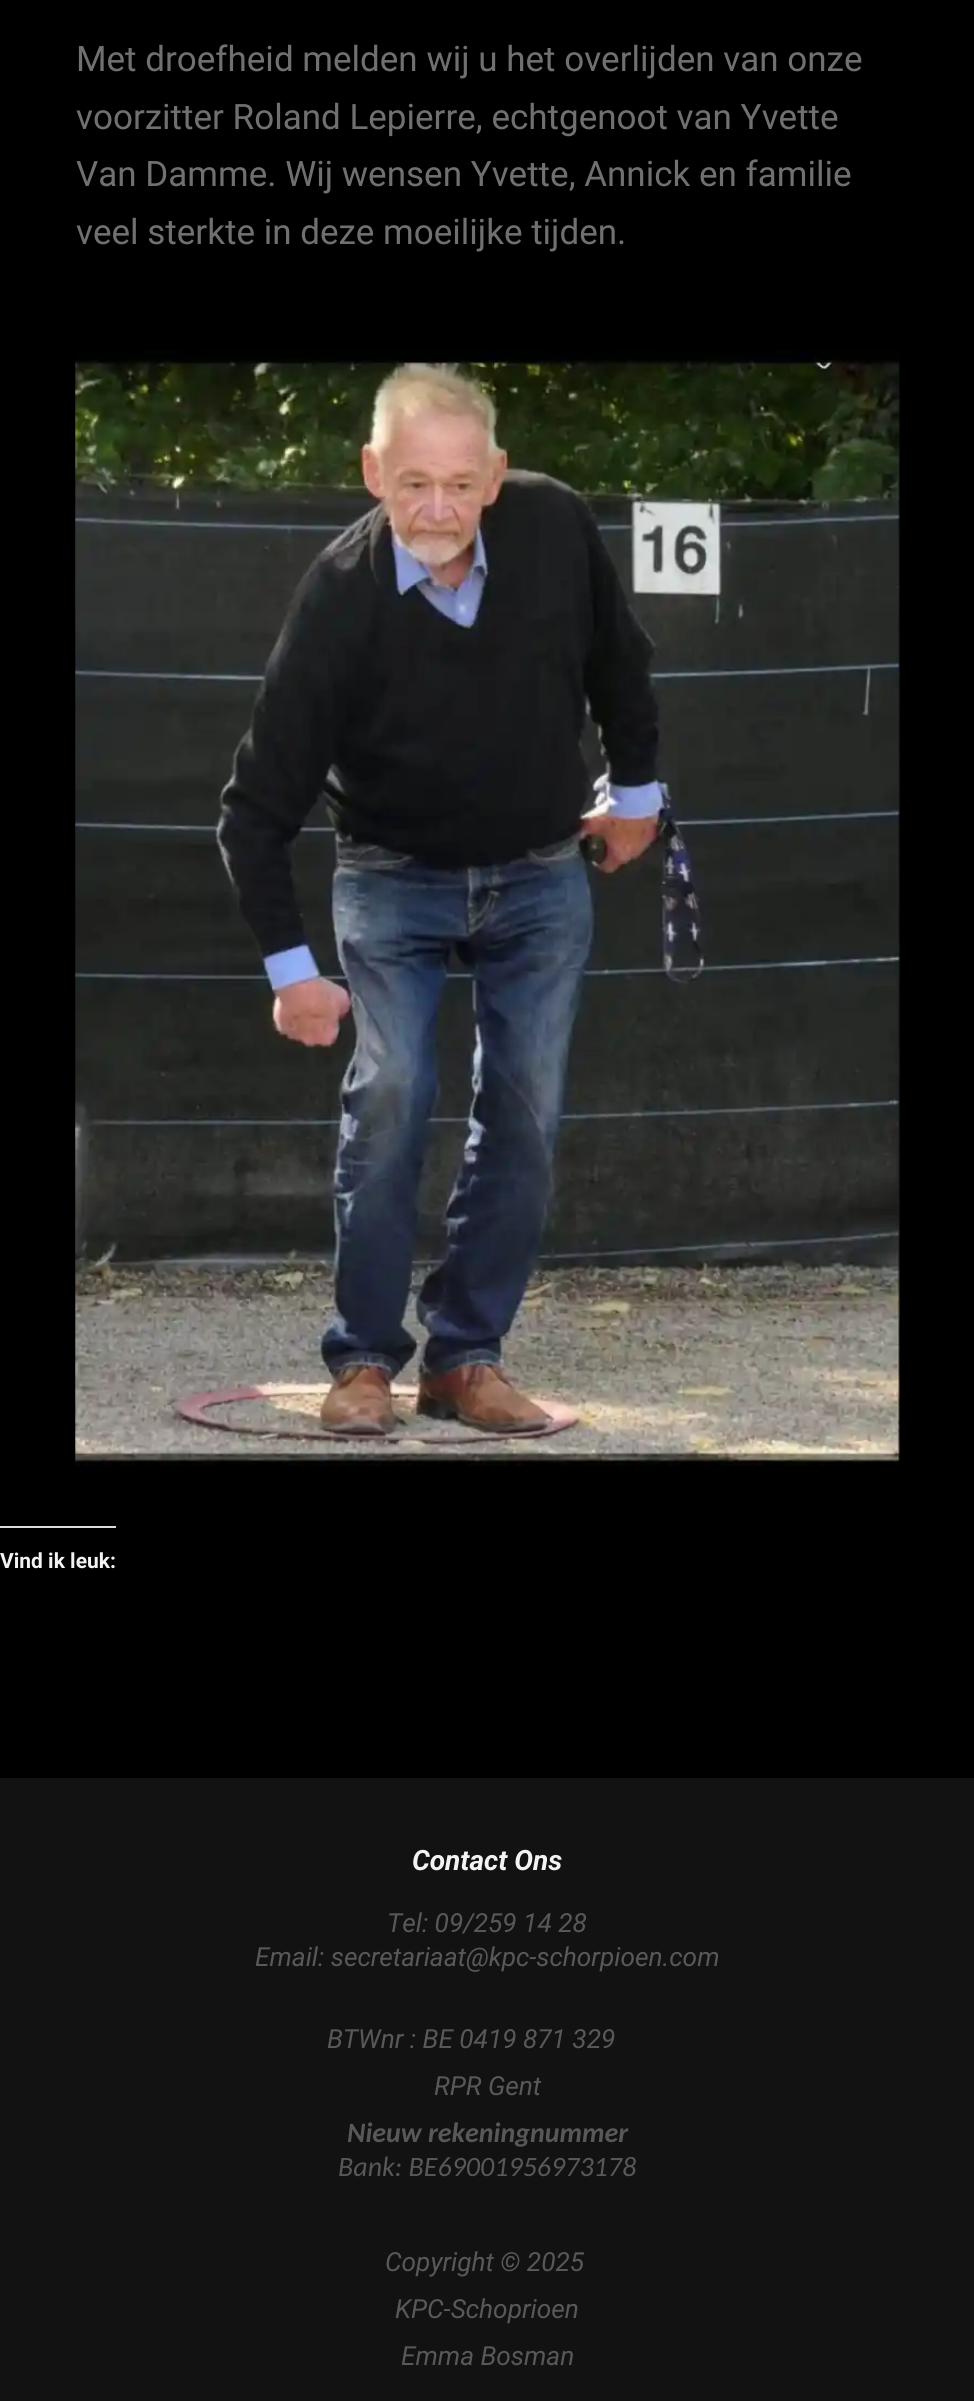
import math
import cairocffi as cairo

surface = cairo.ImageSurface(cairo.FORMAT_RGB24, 974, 2401)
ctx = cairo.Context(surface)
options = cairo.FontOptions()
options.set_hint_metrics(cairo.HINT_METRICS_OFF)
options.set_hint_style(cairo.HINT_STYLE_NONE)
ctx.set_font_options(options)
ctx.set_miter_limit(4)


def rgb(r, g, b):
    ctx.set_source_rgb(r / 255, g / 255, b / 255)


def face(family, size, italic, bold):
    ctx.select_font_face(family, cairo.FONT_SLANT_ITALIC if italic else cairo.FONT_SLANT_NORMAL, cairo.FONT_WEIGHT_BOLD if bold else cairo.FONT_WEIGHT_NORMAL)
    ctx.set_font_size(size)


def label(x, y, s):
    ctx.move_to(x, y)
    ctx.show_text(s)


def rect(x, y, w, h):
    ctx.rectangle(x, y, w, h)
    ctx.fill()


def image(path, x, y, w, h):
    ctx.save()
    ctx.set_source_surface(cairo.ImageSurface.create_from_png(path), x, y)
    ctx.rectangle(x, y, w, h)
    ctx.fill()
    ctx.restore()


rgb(0, 0, 0)
ctx.paint()
face('Roboto', 35, 0, 0)
rgb(112, 112, 112)
label(76, 71, 'Met droefheid melden wij u het overlijden van onze')
label(76, 129, 'voorzitter Roland Lepierre, echtgenoot van Yvette')
label(76, 186, 'Van Damme. Wij wensen Yvette, Annick en familie')
label(76, 244, 'veel sterkte in deze moeilijke tijden.')
image('image0.png', 75, 349, 825, 1117)
rgb(220, 220, 222)
rect(0, 1526, 116, 2)
face('Roboto', 21, 0, 1)
rgb(243, 243, 243)
label(0, 1568, 'Vind ik leuk:')
rgb(18, 18, 18)
rect(0, 1778, 974, 623)
face('Roboto', 28, 1, 1)
rgb(243, 243, 243)
label(412, 1870, 'Contact Ons')
face('Roboto', 26.25, 1, 0)
rgb(88, 88, 88)
label(387, 1932, 'Tel: 09/259 14 28')
label(255, 1966, 'Email: secretariaat@kpc-schorpioen.com')
label(327, 2048, 'BTWnr : BE 0419 871 329')
label(434, 2095, 'RPR Gent')
face('Carlito', 28, 1, 1)
label(347, 2142, 'Nieuw rekeningnummer')
face('Carlito', 28, 1, 0)
label(338, 2176, 'Bank: BE69001956973178')
face('Roboto', 26.25, 1, 0)
label(385, 2271, 'Copyright © 2025')
label(395, 2318, 'KPC-Schoprioen')
label(401, 2365, 'Emma Bosman')
surface.write_to_png('render.png')
